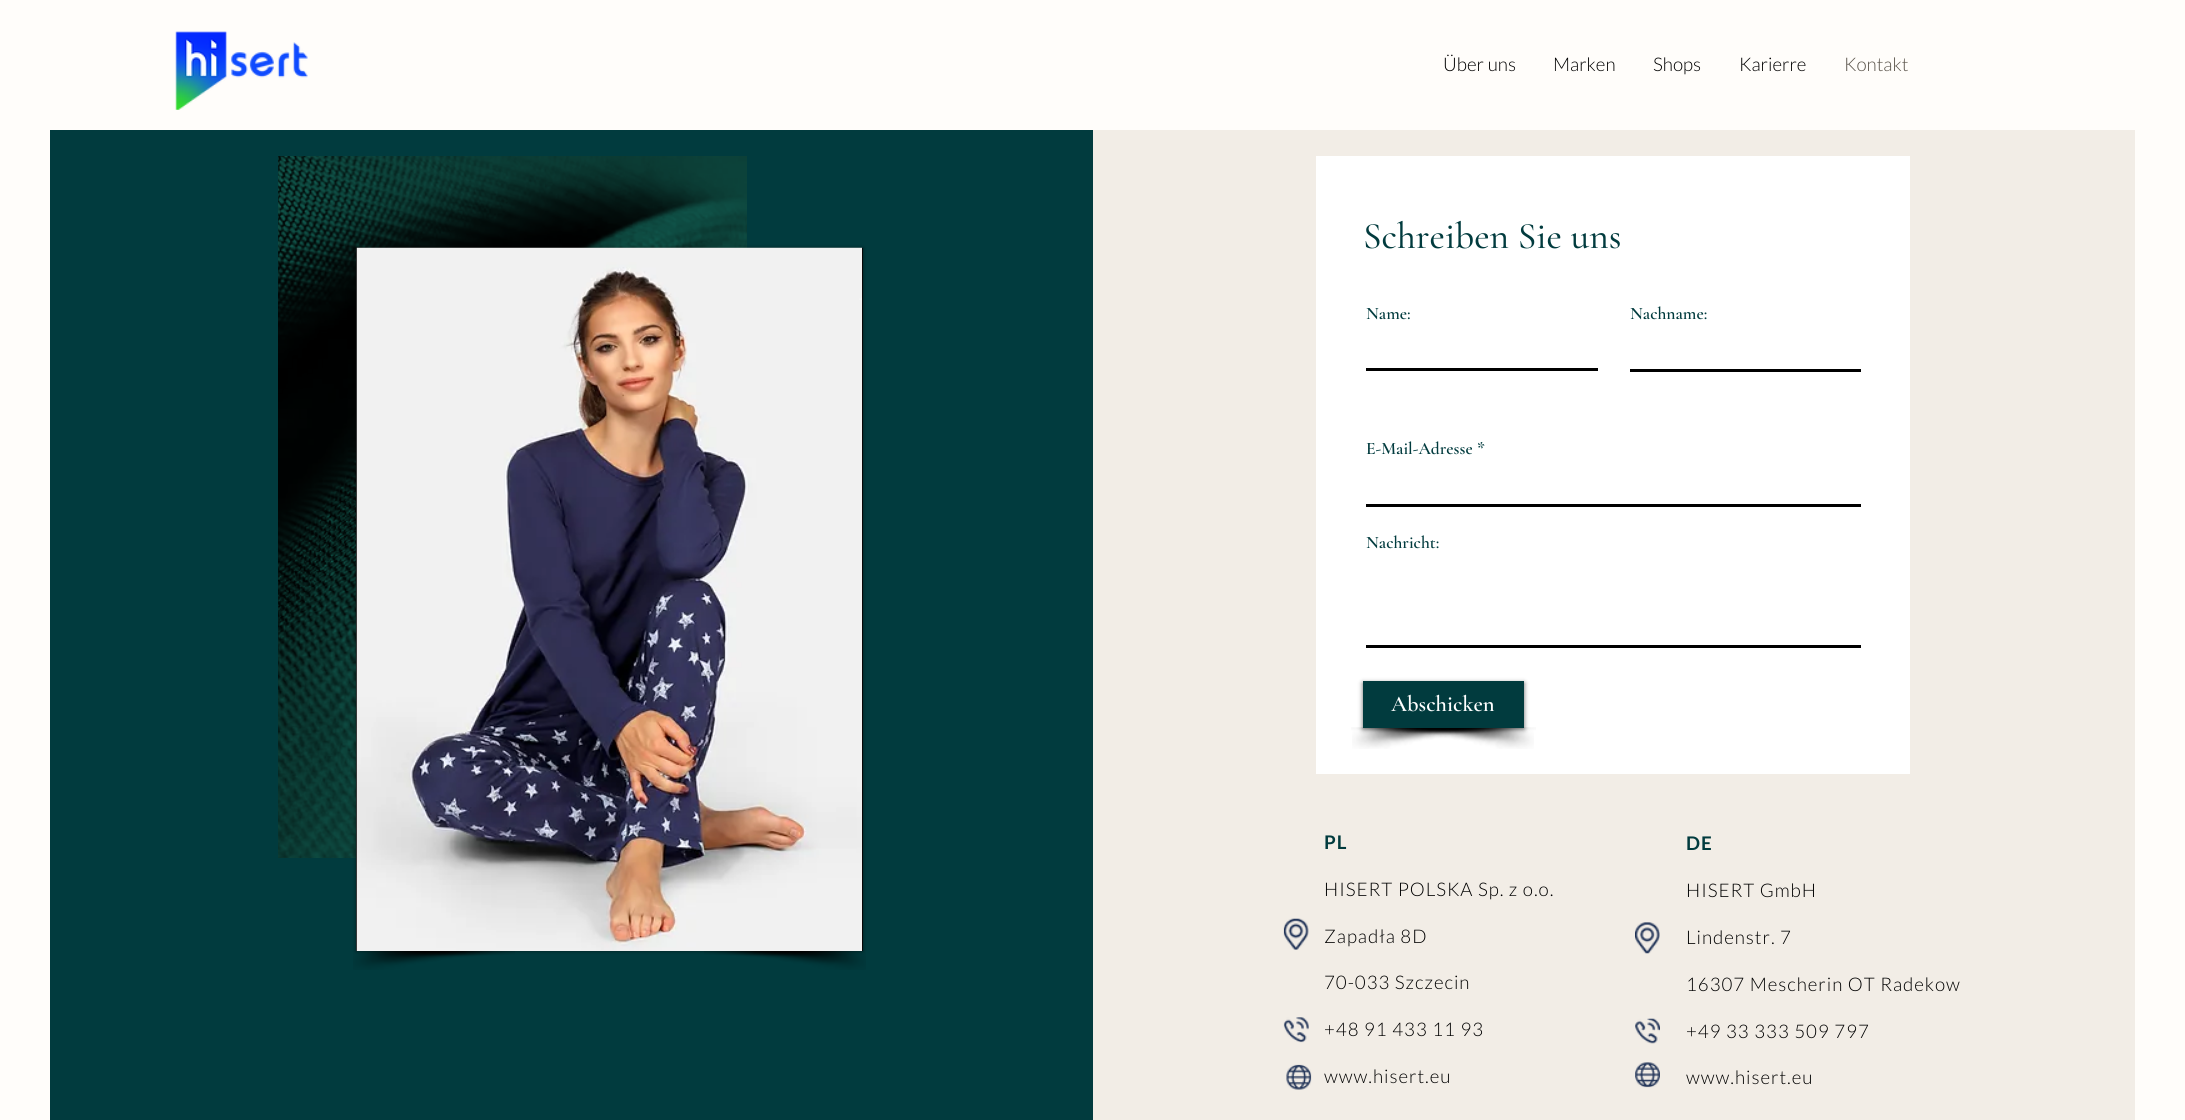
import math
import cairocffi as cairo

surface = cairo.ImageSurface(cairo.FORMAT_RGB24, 2185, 1120)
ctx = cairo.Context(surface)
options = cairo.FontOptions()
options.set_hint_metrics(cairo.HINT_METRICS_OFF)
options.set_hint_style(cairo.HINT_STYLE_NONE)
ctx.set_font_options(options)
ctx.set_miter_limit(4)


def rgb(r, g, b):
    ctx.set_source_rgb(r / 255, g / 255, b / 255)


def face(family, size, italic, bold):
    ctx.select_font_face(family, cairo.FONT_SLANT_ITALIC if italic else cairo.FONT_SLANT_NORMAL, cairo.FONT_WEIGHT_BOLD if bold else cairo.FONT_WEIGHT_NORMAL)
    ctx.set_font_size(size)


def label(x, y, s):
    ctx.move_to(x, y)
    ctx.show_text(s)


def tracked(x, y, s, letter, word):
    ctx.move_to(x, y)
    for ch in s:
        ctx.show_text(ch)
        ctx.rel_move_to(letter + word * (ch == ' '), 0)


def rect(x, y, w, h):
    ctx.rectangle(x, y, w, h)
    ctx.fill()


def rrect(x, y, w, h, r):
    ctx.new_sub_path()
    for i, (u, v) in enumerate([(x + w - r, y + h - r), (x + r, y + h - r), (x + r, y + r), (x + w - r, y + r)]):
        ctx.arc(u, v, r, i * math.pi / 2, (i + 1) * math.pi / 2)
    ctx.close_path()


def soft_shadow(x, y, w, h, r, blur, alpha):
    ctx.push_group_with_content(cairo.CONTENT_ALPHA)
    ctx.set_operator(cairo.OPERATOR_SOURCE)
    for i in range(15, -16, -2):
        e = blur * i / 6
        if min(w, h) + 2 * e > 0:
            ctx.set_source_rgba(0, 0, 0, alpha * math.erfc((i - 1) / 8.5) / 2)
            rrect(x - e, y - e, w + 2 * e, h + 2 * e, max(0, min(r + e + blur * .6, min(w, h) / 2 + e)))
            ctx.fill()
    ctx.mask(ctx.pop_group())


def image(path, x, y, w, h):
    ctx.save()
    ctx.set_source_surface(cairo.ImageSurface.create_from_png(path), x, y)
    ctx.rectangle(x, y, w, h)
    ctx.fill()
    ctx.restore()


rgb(255, 253, 250)
ctx.paint()
image('image0.png', 175, 31, 133, 79)
face('Lato Light', 18.75, 0, 0)
rgb(0, 0, 0)
label(1443, 71, 'Über uns')
label(1553, 71, 'Marken')
label(1653, 71, 'Shops')
label(1739, 71, 'Karierre')
rgb(89, 83, 74)
label(1844, 71, 'Kontakt')
rgb(1, 59, 62)
rect(50, 130, 1043, 990)
image('image1.png', 278, 156, 469, 702)
rgb(0, 0, 0)
soft_shadow(356, 248, 507, 703, 0, 2, 0.5)
rgb(0, 0, 0)
rect(356, 248, 507, 703)
image('image2.png', 356, 247, 507, 704)
image('image3.png', 353, 951, 162, 19)
image('image4.png', 704, 951, 162, 19)
rgb(242, 237, 230)
rect(1093, 130, 1042, 990)
rgb(255, 255, 255)
rect(1316, 156, 594, 618)
face('Cormorant Garamond Medium', 37.5, 0, 0)
rgb(1, 59, 62)
label(1363, 248, 'Schreiben Sie uns')
face('Cormorant Garamond SemiBold', 17.5, 0, 0)
label(1366, 319, 'Name:')
rgb(0, 0, 0)
rect(1366, 368, 232, 3)
rgb(1, 59, 62)
label(1630, 319, 'Nachname:')
rgb(0, 0, 0)
rect(1630, 369, 231, 3)
rgb(1, 59, 62)
label(1366, 454, 'E-Mail-Adresse')
label(1477, 454, '*')
rgb(0, 0, 0)
rect(1366, 504, 495, 3)
rgb(1, 59, 62)
label(1366, 548, 'Nachricht:')
rgb(0, 0, 0)
rect(1366, 645, 495, 3)
image('image6.png', 1352, 727, 184, 22)
image('image5.png', 1351, 727, 183, 22)
rgb(0, 0, 0)
soft_shadow(1363, 683, 161, 46, 0, 2.5, 0.6)
rgb(1, 59, 62)
rect(1363, 681, 161, 47)
face('Cormorant Garamond SemiBold', 22.5, 0, 0)
rgb(255, 255, 255)
label(1391, 711, 'Abschicken')
image('image7.png', 1283, 918, 26, 32)
face('Lato', 18.75, 0, 1)
rgb(1, 59, 62)
tracked(1324, 849, 'PL', 0.95, 0)
face('Lato Light', 18.75, 0, 0)
rgb(0, 0, 0)
tracked(1324, 896, 'HISERT POLSKA Sp. z o.o.', 0.95, 0)
tracked(1324, 943, 'Zapadła 8D', 0.95, 0)
tracked(1324, 989, '70-033 Szczecin', 0.95, 0)
tracked(1324, 1036, '+48 91 433 11 93', 0.95, 0)
tracked(1324, 1083, 'www.hisert.eu', 0.95, 0)
image('image8.png', 1635, 922, 25, 32)
face('Lato', 18.75, 0, 1)
rgb(1, 59, 62)
tracked(1686, 850, 'DE', 0.95, 0)
face('Lato Light', 18.75, 0, 0)
rgb(0, 0, 0)
tracked(1686, 897, 'HISERT GmbH', 0.95, 0)
tracked(1686, 944, 'Lindenstr. 7', 0.95, 0)
tracked(1686, 991, '16307 Mescherin OT Radekow', 0.95, 0)
tracked(1686, 1038, '+49 33 333 509 797', 0.95, 0)
tracked(1686, 1084, 'www.hisert.eu', 0.95, 0)
image('image9.png', 1283, 1017, 26, 26)
image('image10.png', 1635, 1018, 25, 26)
image('image11.png', 1286, 1064, 26, 26)
image('image12.png', 1635, 1062, 25, 26)
surface.write_to_png('render.png')
